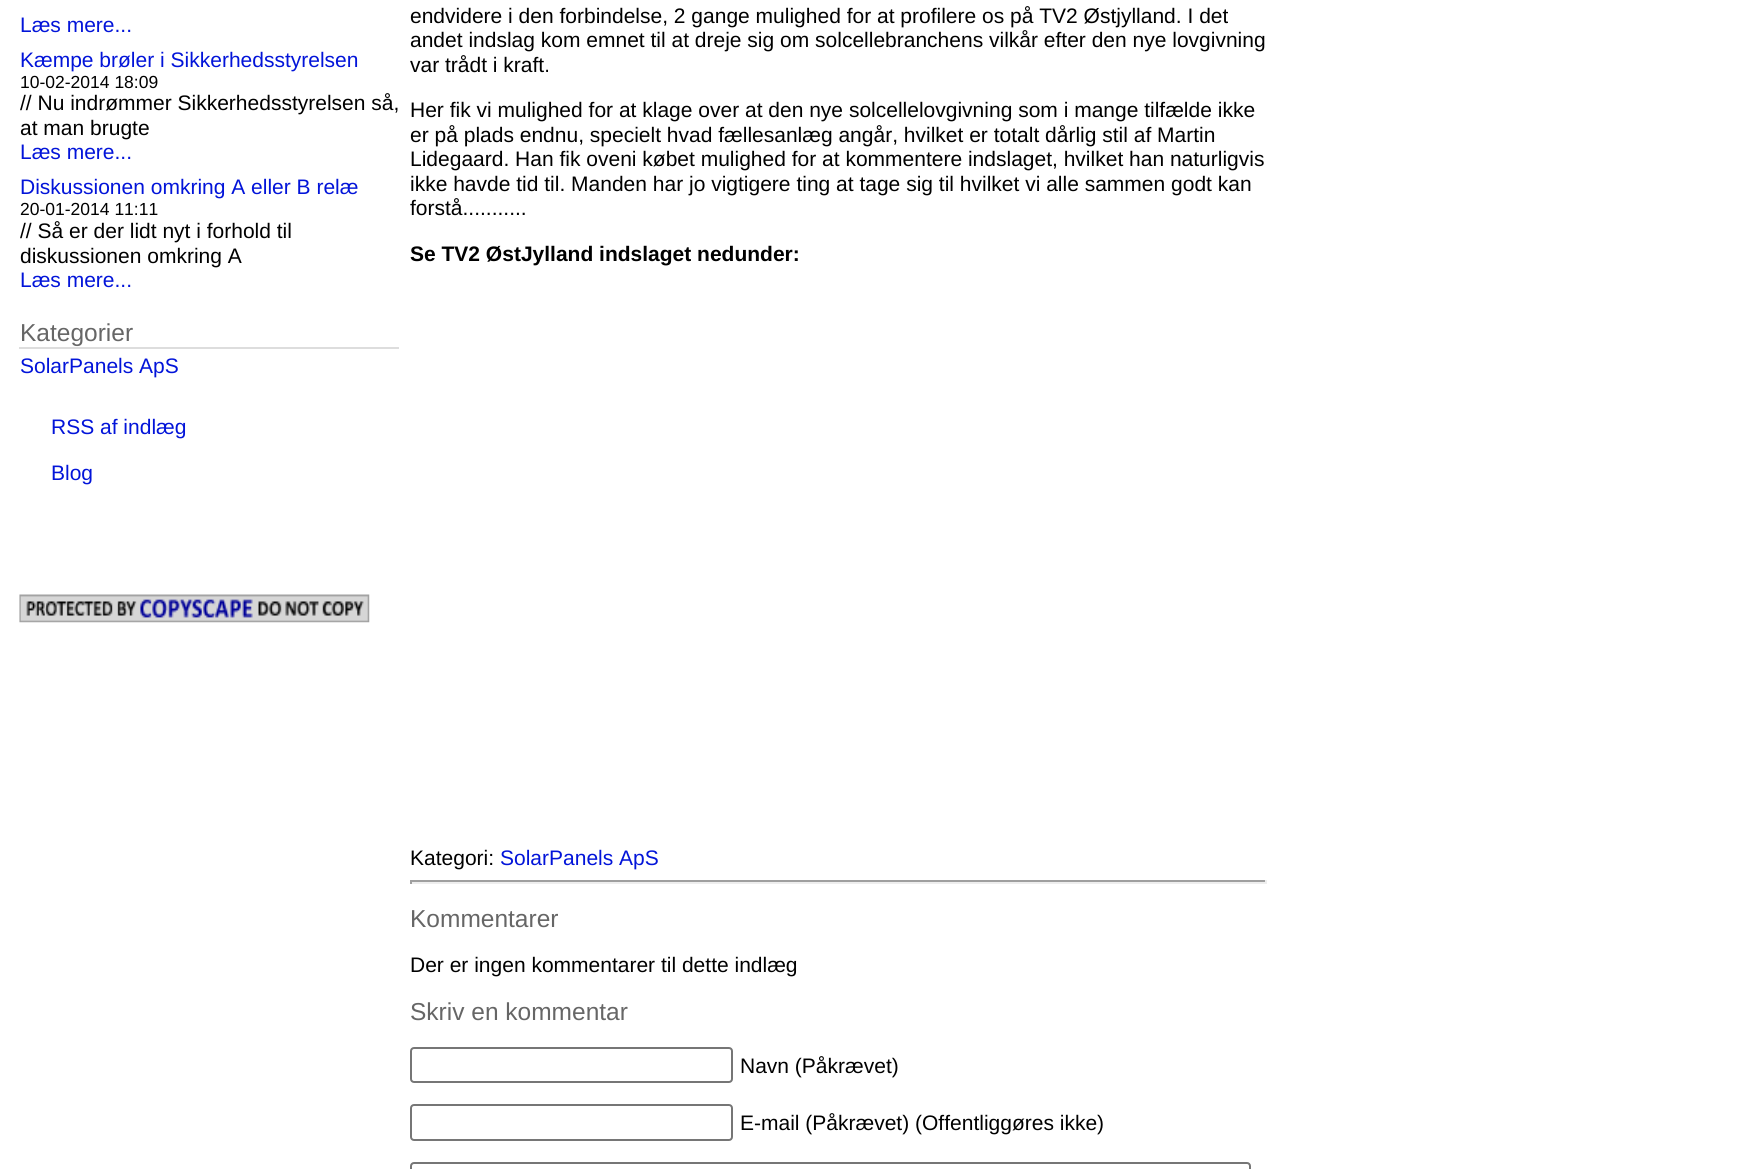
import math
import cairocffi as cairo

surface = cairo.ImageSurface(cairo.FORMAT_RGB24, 1761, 1169)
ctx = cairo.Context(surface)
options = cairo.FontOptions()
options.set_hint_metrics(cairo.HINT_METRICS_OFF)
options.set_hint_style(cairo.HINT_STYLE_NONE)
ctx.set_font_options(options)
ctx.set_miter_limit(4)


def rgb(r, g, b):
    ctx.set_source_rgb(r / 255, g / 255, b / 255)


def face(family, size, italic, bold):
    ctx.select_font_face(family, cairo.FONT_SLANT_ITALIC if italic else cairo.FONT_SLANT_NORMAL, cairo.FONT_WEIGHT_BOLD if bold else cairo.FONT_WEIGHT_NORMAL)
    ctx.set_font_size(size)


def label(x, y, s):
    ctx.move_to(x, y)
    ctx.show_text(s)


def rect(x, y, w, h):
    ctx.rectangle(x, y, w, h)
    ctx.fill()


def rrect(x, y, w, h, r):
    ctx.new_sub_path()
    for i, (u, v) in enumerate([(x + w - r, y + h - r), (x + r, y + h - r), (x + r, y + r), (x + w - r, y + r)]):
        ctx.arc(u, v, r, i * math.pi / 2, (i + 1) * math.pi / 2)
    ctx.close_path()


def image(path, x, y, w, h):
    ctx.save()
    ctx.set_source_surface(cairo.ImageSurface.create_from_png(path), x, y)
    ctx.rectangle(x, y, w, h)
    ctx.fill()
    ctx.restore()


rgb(255, 255, 255)
ctx.paint()
face('Liberation Sans', 21, 0, 0)
rgb(2, 20, 217)
label(20, 32, 'Læs mere...')
label(20, 67, 'Kæmpe brøler i Sikkerhedsstyrelsen')
face('Liberation Sans', 17.5, 0, 0)
rgb(0, 0, 0)
label(20, 88, '10-02-2014 18:09')
face('Liberation Sans', 21, 0, 0)
label(20, 110, '// Nu indrømmer Sikkerhedsstyrelsen så,')
label(20, 135, 'at man brugte')
rgb(2, 20, 217)
label(20, 159, 'Læs mere...')
label(20, 194, 'Diskussionen omkring A eller B relæ')
face('Liberation Sans', 17.5, 0, 0)
rgb(0, 0, 0)
label(20, 215, '20-01-2014 11:11')
face('Liberation Sans', 21, 0, 0)
label(20, 238, '// Så er der lidt nyt i forhold til')
label(20, 263, 'diskussionen omkring A')
rgb(2, 20, 217)
label(20, 287, 'Læs mere...')
rgb(221, 221, 221)
rect(19, 347, 380, 2)
face('Liberation Sans', 24.5, 0, 0)
rgb(102, 102, 102)
label(20, 341, 'Kategorier')
face('Liberation Sans', 21, 0, 0)
rgb(2, 20, 217)
label(20, 373, 'SolarPanels ApS')
label(51, 434, 'RSS af indlæg')
label(51, 480, 'Blog')
image('image0.png', 19, 594, 351, 29)
rgb(0, 0, 0)
label(410, 23, 'endvidere i den forbindelse, 2 gange mulighed for at profilere os på TV2 Østjylland. I det')
label(410, 47, 'andet indslag kom emnet til at dreje sig om solcellebranchens vilkår efter den nye lovgivning')
label(410, 72, 'var trådt i kraft.')
label(410, 117, 'Her fik vi mulighed for at klage over at den nye solcellelovgivning som i mange tilfælde ikke')
label(410, 142, 'er på plads endnu, specielt hvad fællesanlæg angår, hvilket er totalt dårlig stil af Martin')
label(410, 166, 'Lidegaard. Han fik oveni købet mulighed for at kommentere indslaget, hvilket han naturligvis')
label(410, 191, 'ikke havde tid til. Manden har jo vigtigere ting at tage sig til hvilket vi alle sammen godt kan')
label(410, 215, 'forstå...........')
face('Liberation Sans', 21, 0, 1)
label(410, 261, 'Se TV2 ØstJylland indslaget nedunder:')
face('Liberation Sans', 21, 0, 0)
label(410, 865, 'Kategori:')
rgb(2, 20, 217)
label(500, 865, 'SolarPanels ApS')
rgb(159, 159, 159)
rect(410, 880, 857, 2)
rgb(238, 238, 238)
rect(1265, 880, 2, 4)
rect(410, 882, 857, 2)
rgb(159, 159, 159)
rect(410, 880, 2, 4)
face('Liberation Sans', 24.5, 0, 0)
rgb(102, 102, 102)
label(410, 927, 'Kommentarer')
face('Liberation Sans', 21, 0, 0)
rgb(0, 0, 0)
label(410, 972, 'Der er ingen kommentarer til dette indlæg')
face('Liberation Sans', 24.5, 0, 0)
rgb(102, 102, 102)
label(410, 1020, 'Skriv en kommentar')
rrect(411, 1048, 321, 34, 3)
rgb(118, 118, 118)
ctx.stroke()
face('Liberation Sans', 21, 0, 0)
rgb(0, 0, 0)
label(740, 1073, 'Navn (Påkrævet)')
rrect(411, 1105, 321, 35, 3)
rgb(118, 118, 118)
ctx.stroke()
rgb(0, 0, 0)
label(740, 1130, 'E-mail (Påkrævet) (Offentliggøres ikke)')
rrect(411, 1163, 839, 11, 3)
rgb(118, 118, 118)
ctx.stroke()
surface.write_to_png('render.png')
